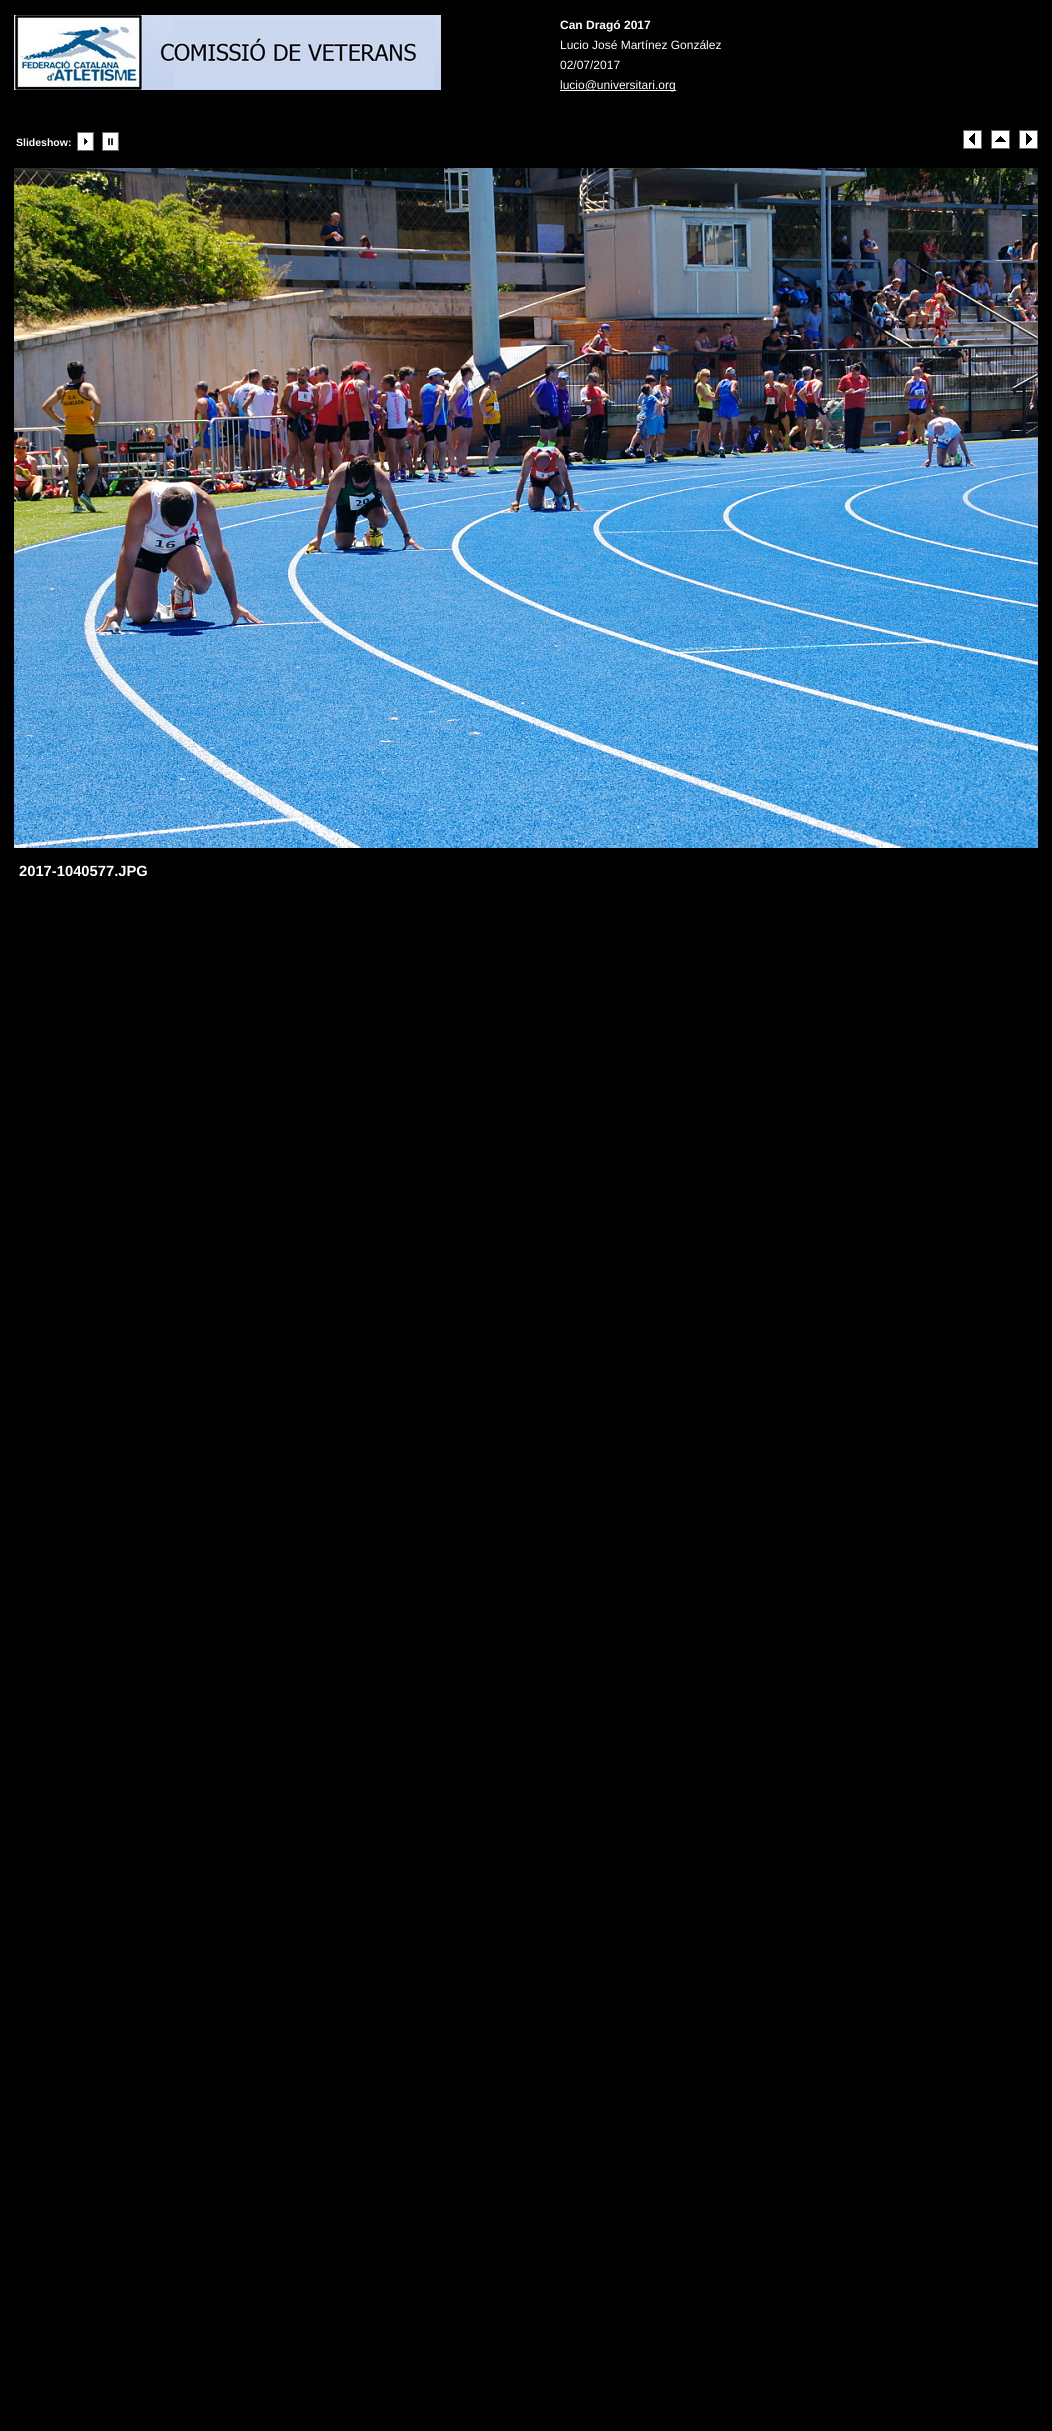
import math
import cairocffi as cairo

surface = cairo.ImageSurface(cairo.FORMAT_RGB24, 1052, 2431)
ctx = cairo.Context(surface)
options = cairo.FontOptions()
options.set_hint_metrics(cairo.HINT_METRICS_OFF)
options.set_hint_style(cairo.HINT_STYLE_NONE)
ctx.set_font_options(options)
ctx.set_miter_limit(4)


def rgb(r, g, b):
    ctx.set_source_rgb(r / 255, g / 255, b / 255)


def face(family, size, italic, bold):
    ctx.select_font_face(family, cairo.FONT_SLANT_ITALIC if italic else cairo.FONT_SLANT_NORMAL, cairo.FONT_WEIGHT_BOLD if bold else cairo.FONT_WEIGHT_NORMAL)
    ctx.set_font_size(size)


def label(x, y, s):
    ctx.move_to(x, y)
    ctx.show_text(s)


def rect(x, y, w, h):
    ctx.rectangle(x, y, w, h)
    ctx.fill()


def image(path, x, y, w, h):
    ctx.save()
    ctx.set_source_surface(cairo.ImageSurface.create_from_png(path), x, y)
    ctx.rectangle(x, y, w, h)
    ctx.fill()
    ctx.restore()


rgb(0, 0, 0)
ctx.paint()
image('image0.png', 14, 15, 427, 75)
face('Liberation Sans', 12, 0, 1)
rgb(255, 255, 255)
label(560, 29, 'Can Dragó 2017')
face('Liberation Sans', 12, 0, 0)
label(560, 49, 'Lucio José Martínez González')
label(560, 69, '02/07/2017')
rect(560, 90, 116, 1)
label(560, 89, 'lucio@universitari.org')
face('Liberation Sans', 10.5, 0, 1)
label(16, 146, 'Slideshow:')
image('image1.png', 77, 132, 17, 19)
image('image2.png', 102, 132, 17, 19)
image('image3.png', 963, 130, 19, 19)
image('image4.png', 991, 130, 19, 19)
image('image5.png', 1019, 130, 19, 19)
image('image6.png', 14, 168, 1024, 680)
face('Liberation Sans', 14.75, 0, 1)
label(19, 876, '2017-1040577.JPG')
surface.write_to_png('render.png')
